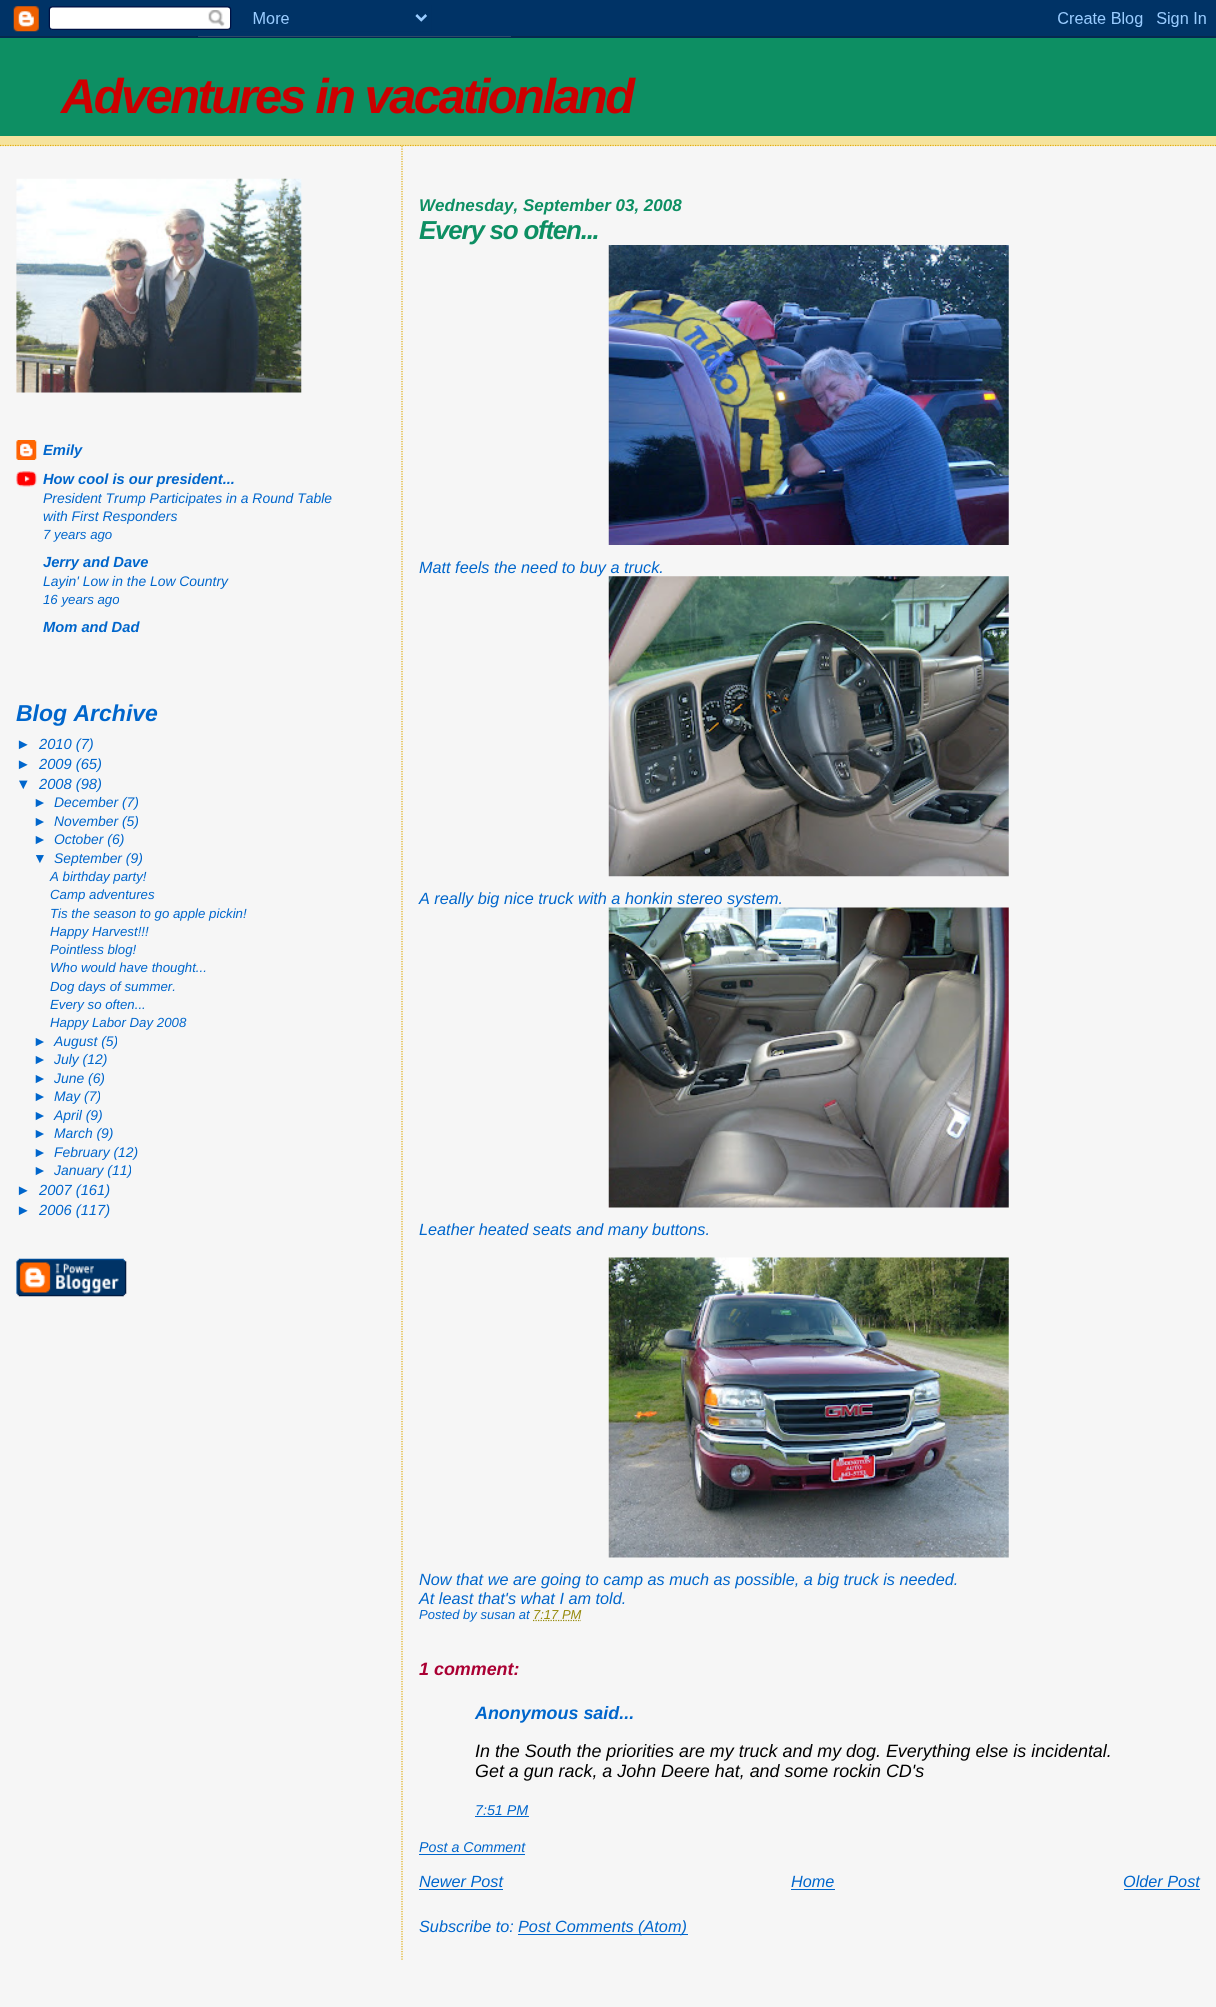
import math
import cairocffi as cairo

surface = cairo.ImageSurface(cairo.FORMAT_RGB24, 1216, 2007)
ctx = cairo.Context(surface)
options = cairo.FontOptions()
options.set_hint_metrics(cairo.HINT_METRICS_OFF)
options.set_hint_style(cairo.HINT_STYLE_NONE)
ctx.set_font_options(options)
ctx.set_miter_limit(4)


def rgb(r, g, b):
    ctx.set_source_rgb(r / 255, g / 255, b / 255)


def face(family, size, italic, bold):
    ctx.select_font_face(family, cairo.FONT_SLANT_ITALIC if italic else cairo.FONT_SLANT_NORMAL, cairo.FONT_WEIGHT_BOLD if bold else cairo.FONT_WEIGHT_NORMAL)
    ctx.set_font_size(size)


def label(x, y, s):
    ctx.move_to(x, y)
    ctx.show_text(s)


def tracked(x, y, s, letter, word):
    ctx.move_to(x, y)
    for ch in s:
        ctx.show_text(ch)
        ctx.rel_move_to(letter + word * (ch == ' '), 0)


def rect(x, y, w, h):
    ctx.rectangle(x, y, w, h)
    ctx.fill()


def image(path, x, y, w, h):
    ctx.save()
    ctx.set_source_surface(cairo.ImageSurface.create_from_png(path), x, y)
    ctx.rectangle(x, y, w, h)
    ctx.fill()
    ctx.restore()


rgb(246, 246, 246)
ctx.paint()
image('image0.png', 0, 0, 1216, 38)
rgb(245, 227, 158)
rect(0, 136, 1216, 10)
ctx.new_path()
ctx.move_to(0, 145.5)
ctx.line_to(1216, 145.5)
rgb(224, 173, 18)
ctx.set_line_width(1.2)
ctx.set_dash([1.25, 1.25])
ctx.stroke()
rgb(13, 143, 99)
rect(0, 38, 1216, 98)
face('Liberation Sans', 48.75, 1, 1)
rgb(204, 0, 0)
tracked(61, 113, 'Adventures in vacationland', -2.5, 0)
image('image1.png', 16, 178, 286, 215)
image('image2.png', 16, 440, 21, 20)
face('Liberation Sans', 14.7, 1, 1)
rgb(0, 102, 204)
label(43, 455, 'Emily')
image('image3.png', 16, 471, 21, 16)
label(43, 484, 'How cool is our president...')
face('Liberation Sans', 13.9, 1, 0)
label(43, 503, 'President Trump Participates in a Round Table')
label(43, 521, 'with First Responders')
face('Liberation Sans', 13.25, 1, 0)
label(43, 539, '7 years ago')
face('Liberation Sans', 14.7, 1, 1)
label(43, 567, 'Jerry and Dave')
face('Liberation Sans', 13.9, 1, 0)
label(43, 586, 'Layin\' Low in the Low Country')
face('Liberation Sans', 13.25, 1, 0)
label(43, 604, '16 years ago')
face('Liberation Sans', 14.7, 1, 1)
label(43, 632, 'Mom and Dad')
face('Liberation Sans', 23, 1, 1)
label(16, 721, 'Blog Archive')
face('Liberation Sans', 14.7, 1, 0)
label(16, 749, '►')
label(39, 749, '2010 (7)')
label(16, 769, '►')
label(39, 769, '2009 (65)')
label(16, 789, '▼')
label(39, 789, '2008 (98)')
face('Liberation Sans', 13.9, 1, 0)
label(33, 807, '►')
label(54, 807, 'December (7)')
label(33, 826, '►')
label(54, 826, 'November (5)')
label(33, 844, '►')
label(54, 844, 'October (6)')
label(33, 863, '▼')
label(54, 863, 'September (9)')
face('Liberation Sans', 13.25, 1, 0)
label(50, 881, 'A birthday party!')
label(50, 899, 'Camp adventures')
label(50, 918, 'Tis the season to go apple pickin!')
label(50, 936, 'Happy Harvest!!!')
label(50, 954, 'Pointless blog!')
label(50, 972, 'Who would have thought...')
label(50, 991, 'Dog days of summer.')
label(50, 1009, 'Every so often...')
label(50, 1027, 'Happy Labor Day 2008')
face('Liberation Sans', 13.9, 1, 0)
label(33, 1046, '►')
label(54, 1046, 'August (5)')
label(33, 1064, '►')
label(54, 1064, 'July (12)')
label(33, 1083, '►')
label(54, 1083, 'June (6)')
label(33, 1101, '►')
label(54, 1101, 'May (7)')
label(33, 1120, '►')
label(54, 1120, 'April (9)')
label(33, 1138, '►')
label(54, 1138, 'March (9)')
label(33, 1157, '►')
label(54, 1157, 'February (12)')
label(33, 1175, '►')
label(54, 1175, 'January (11)')
face('Liberation Sans', 14.7, 1, 0)
label(16, 1195, '►')
label(39, 1195, '2007 (161)')
label(16, 1215, '►')
label(39, 1215, '2006 (117)')
image('image4.png', 16, 1258, 111, 39)
ctx.new_path()
ctx.move_to(402, 146)
ctx.line_to(402, 1960)
rgb(224, 173, 18)
ctx.stroke()
face('Liberation Sans', 17, 1, 1)
rgb(13, 143, 99)
label(419, 211, 'Wednesday, September 03, 2008')
face('Liberation Sans', 26, 1, 1)
tracked(419, 239, 'Every so often...', -1.25, 0)
image('image5.png', 608, 245, 401, 300)
face('Liberation Sans', 16.25, 1, 0)
rgb(0, 102, 204)
label(419, 573, 'Matt feels the need to buy a truck.')
image('image6.png', 608, 576, 401, 301)
label(419, 904, 'A really big nice truck with a honkin stereo system.')
image('image7.png', 608, 907, 401, 301)
label(419, 1235, 'Leather heated seats and many buttons.')
image('image8.png', 608, 1257, 401, 301)
label(419, 1585, 'Now that we are going to camp as much as possible, a big truck is needed.')
label(419, 1604, 'At least that\'s what I am told.')
face('Liberation Sans', 13, 1, 0)
label(419, 1619, 'Posted by susan at')
rgb(150, 138, 10)
label(533, 1619, '7:17 PM')
ctx.new_path()
ctx.move_to(533, 1620.5)
ctx.line_to(581, 1620.5)
ctx.stroke()
face('Liberation Sans', 17.9, 1, 1)
rgb(170, 0, 51)
label(419, 1675, '1 comment:')
rgb(0, 102, 204)
label(475, 1719, 'Anonymous said...')
face('Liberation Sans', 17.9, 1, 0)
rgb(0, 0, 0)
label(475, 1757, 'In the South the priorities are my truck and my dog. Everything else is incidental.')
label(475, 1777, 'Get a gun rack, a John Deere hat, and some rockin CD\'s')
face('Liberation Sans', 14.25, 1, 0)
rgb(0, 102, 204)
label(475, 1815, '7:51 PM')
rect(475, 1816, 54, 1)
label(419, 1852, 'Post a Comment')
rect(419, 1854, 106, 1)
face('Liberation Sans', 16.25, 1, 0)
label(419, 1887, 'Newer Post')
rect(419, 1889, 84, 1)
label(791, 1887, 'Home')
rect(791, 1889, 44, 1)
label(1123, 1887, 'Older Post')
rect(1124, 1889, 76, 1)
label(419, 1932, 'Subscribe to:')
rect(518, 1934, 170, 1)
label(518, 1932, 'Post Comments (Atom)')
surface.write_to_png('render.png')
